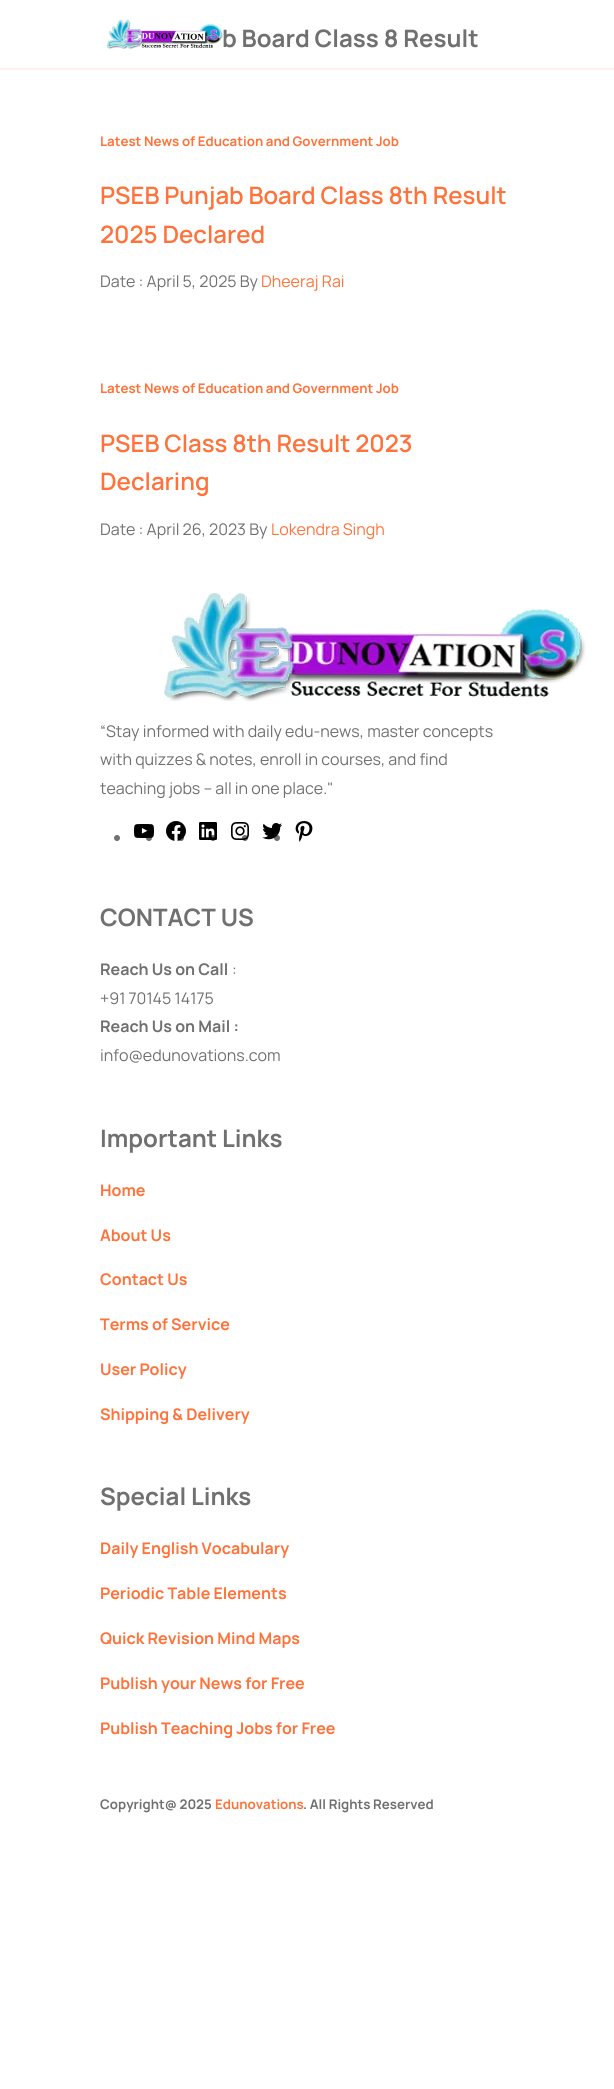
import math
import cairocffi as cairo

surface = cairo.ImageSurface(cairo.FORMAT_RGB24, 614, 2089)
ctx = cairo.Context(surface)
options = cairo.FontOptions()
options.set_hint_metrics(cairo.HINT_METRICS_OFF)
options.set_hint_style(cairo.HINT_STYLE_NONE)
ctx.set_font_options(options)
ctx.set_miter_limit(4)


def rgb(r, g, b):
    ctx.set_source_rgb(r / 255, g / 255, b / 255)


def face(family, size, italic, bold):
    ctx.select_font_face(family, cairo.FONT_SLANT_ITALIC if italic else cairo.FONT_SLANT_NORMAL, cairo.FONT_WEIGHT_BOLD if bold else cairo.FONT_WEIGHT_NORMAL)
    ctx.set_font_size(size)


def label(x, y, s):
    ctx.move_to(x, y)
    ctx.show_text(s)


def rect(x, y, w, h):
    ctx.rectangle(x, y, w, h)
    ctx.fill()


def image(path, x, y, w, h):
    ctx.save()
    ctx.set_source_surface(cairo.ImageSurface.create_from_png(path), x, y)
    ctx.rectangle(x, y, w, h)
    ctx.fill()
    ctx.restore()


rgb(255, 255, 255)
ctx.paint()
rgb(255, 241, 235)
rect(0, 68, 614, 2)
image('image0.png', 106, 19, 117, 30)
face('Manrope', 24, 0, 1)
rgb(112, 112, 112)
label(222, 47, 'b Board Class 8 Result')
face('Manrope', 13.25, 0, 1)
rgb(255, 114, 58)
label(100, 146, 'Latest News of Education and Government Job')
face('Manrope SemiBold', 24, 0, 0)
label(100, 204, 'PSEB Punjab Board Class 8th Result')
label(100, 243, '2025 Declared')
face('Manrope', 16, 0, 0)
rgb(112, 112, 112)
label(100, 287, 'Date : April 5, 2025 By')
rgb(255, 114, 58)
label(261, 287, 'Dheeraj Rai')
face('Manrope', 13.25, 0, 1)
label(100, 393, 'Latest News of Education and Government Job')
face('Manrope SemiBold', 24, 0, 0)
label(100, 452, 'PSEB Class 8th Result 2023')
label(100, 490, 'Declaring')
face('Manrope', 16, 0, 0)
rgb(112, 112, 112)
label(100, 535, 'Date : April 26, 2023 By')
rgb(255, 114, 58)
label(271, 535, 'Lokendra Singh')
image('image1.png', 164, 593, 422, 108)
rgb(112, 112, 112)
label(100, 737, '“Stay informed with daily edu-news, master concepts')
label(100, 765, 'with quizzes & notes, enroll in courses, and find')
label(100, 794, 'teaching jobs – all in one place."')
ctx.new_path()
ctx.arc(117, 838, 3, 0, 2 * math.pi)
ctx.fill()
ctx.arc(149, 838, 3, 0, 2 * math.pi)
ctx.fill()
image('image2.png', 134, 824, 20, 14)
ctx.arc(181, 838, 3, 0, 2 * math.pi)
ctx.fill()
image('image3.png', 166, 821, 20, 20)
ctx.arc(213, 838, 3, 0, 2 * math.pi)
ctx.fill()
image('image4.png', 199, 822, 18, 18)
ctx.arc(245, 838, 3, 0, 2 * math.pi)
ctx.fill()
image('image5.png', 231, 822, 18, 18)
ctx.arc(277, 838, 3, 0, 2 * math.pi)
ctx.fill()
image('image6.png', 262, 823, 20, 17)
image('image7.png', 295, 821, 18, 21)
face('Manrope', 24, 0, 1)
label(100, 926, 'CONTACT US')
face('Manrope', 16, 0, 1)
label(100, 975, 'Reach Us on Call')
face('Manrope', 16, 0, 0)
label(232, 975, ':')
label(100, 1004, '+91 70145 14175')
face('Manrope', 16, 0, 1)
label(100, 1032, 'Reach Us on Mail :')
face('Manrope', 16, 0, 0)
label(100, 1061, 'info@edunovations.com')
face('Manrope', 24, 0, 1)
label(100, 1147, 'Important Links')
face('Manrope', 16, 0, 1)
rgb(255, 114, 58)
label(100, 1196, 'Home')
label(100, 1241, 'About Us')
label(100, 1285, 'Contact Us')
label(100, 1330, 'Terms of Service')
label(100, 1375, 'User Policy')
label(100, 1420, 'Shipping & Delivery')
face('Manrope', 24, 0, 1)
rgb(112, 112, 112)
label(100, 1505, 'Special Links')
face('Manrope', 16, 0, 1)
rgb(255, 114, 58)
label(100, 1554, 'Daily English Vocabulary')
label(100, 1599, 'Periodic Table Elements')
label(100, 1644, 'Quick Revision Mind Maps')
label(100, 1689, 'Publish your News for Free')
label(100, 1734, 'Publish Teaching Jobs for Free')
face('Manrope', 13.25, 0, 1)
rgb(112, 112, 112)
label(100, 1809, 'Copyright@ 2025')
rgb(255, 114, 58)
label(215, 1809, 'Edunovations')
rgb(112, 112, 112)
label(303, 1809, '. All Rights Reserved')
surface.write_to_png('render.png')
